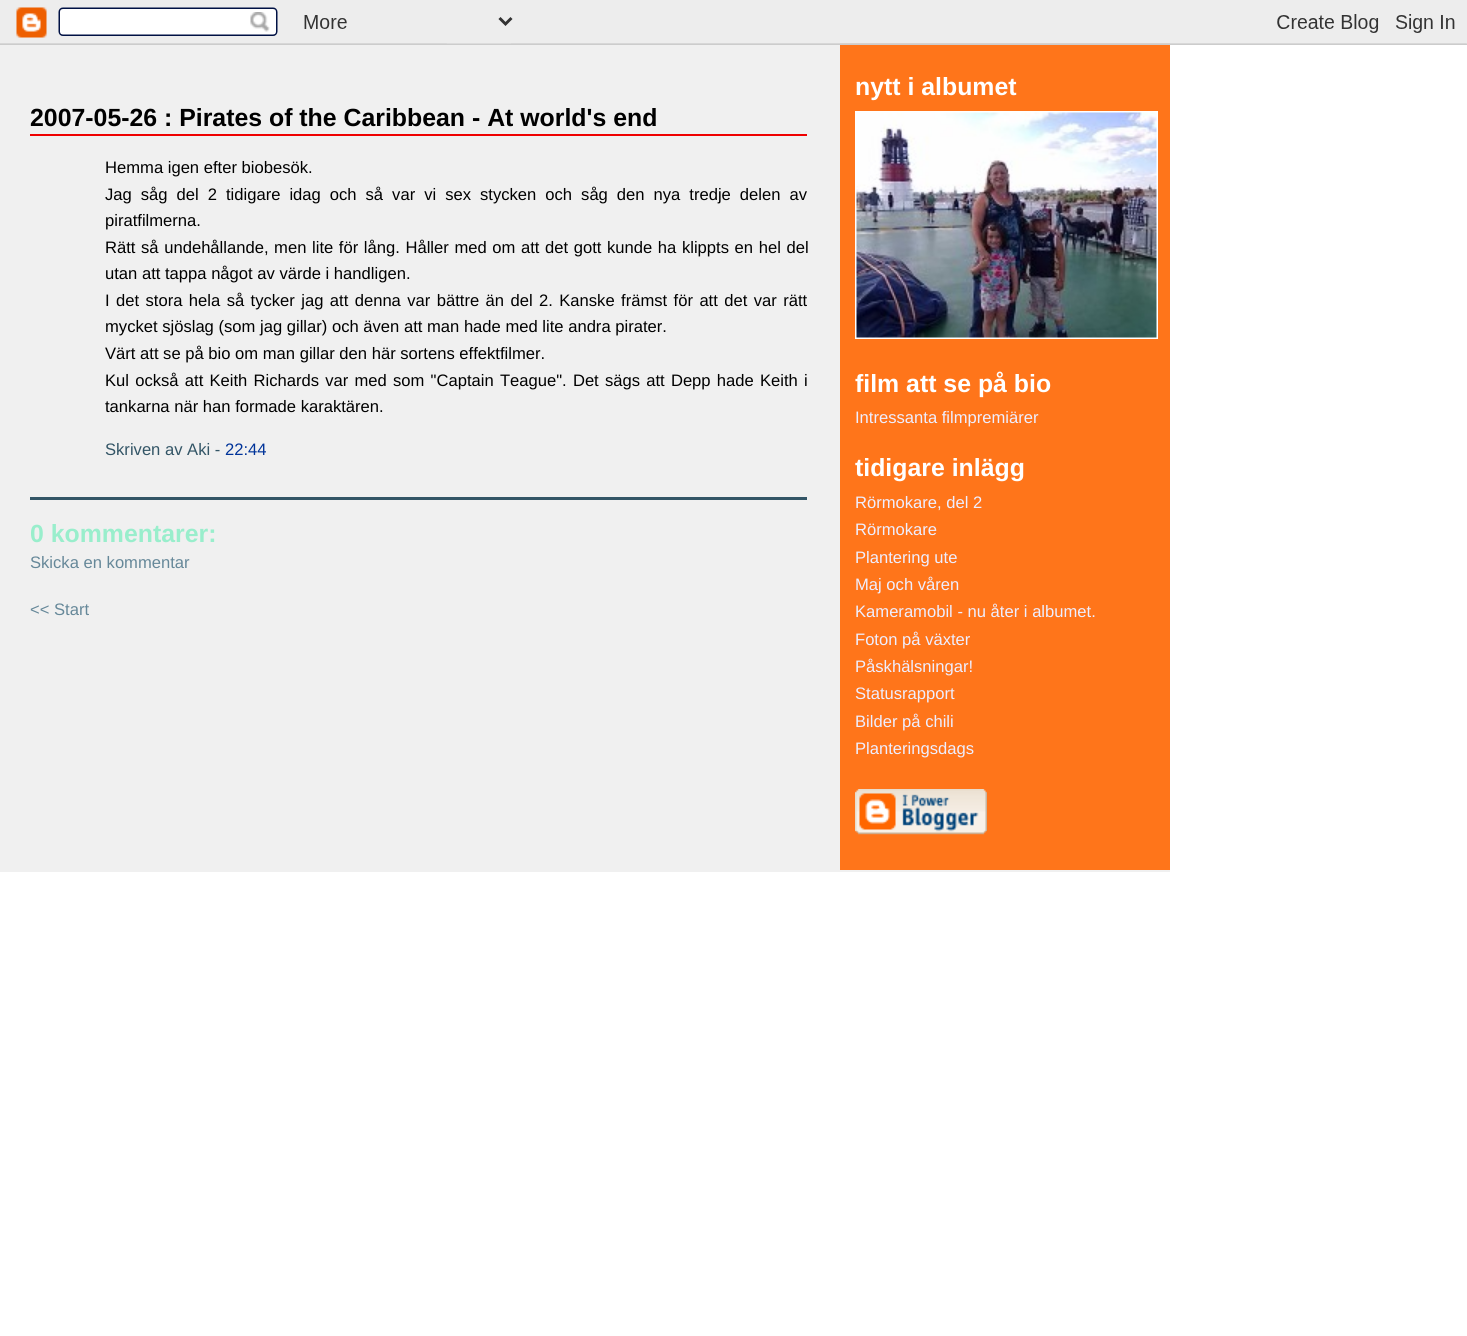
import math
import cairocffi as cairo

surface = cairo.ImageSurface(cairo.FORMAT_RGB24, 1467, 1336)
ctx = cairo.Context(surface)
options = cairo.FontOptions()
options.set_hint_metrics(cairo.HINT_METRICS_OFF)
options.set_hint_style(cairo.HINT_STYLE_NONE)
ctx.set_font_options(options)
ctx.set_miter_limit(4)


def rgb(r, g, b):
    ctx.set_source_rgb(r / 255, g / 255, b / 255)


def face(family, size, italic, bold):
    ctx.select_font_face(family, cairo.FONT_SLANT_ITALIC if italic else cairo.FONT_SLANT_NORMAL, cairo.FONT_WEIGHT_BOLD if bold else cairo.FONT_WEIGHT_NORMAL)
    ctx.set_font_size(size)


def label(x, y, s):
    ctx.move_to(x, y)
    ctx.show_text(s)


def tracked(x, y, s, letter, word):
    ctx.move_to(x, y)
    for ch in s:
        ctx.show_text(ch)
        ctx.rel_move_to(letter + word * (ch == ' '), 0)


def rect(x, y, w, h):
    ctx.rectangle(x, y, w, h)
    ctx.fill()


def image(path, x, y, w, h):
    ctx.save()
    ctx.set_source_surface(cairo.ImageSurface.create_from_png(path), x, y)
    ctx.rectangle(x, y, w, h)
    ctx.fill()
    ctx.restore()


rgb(255, 255, 255)
ctx.paint()
rgb(240, 240, 240)
rect(0, 43, 1170, 829)
rgb(255, 117, 26)
rect(840, 43, 330, 827)
image('image0.png', 0, 0, 1467, 45)
rgb(239, 0, 0)
rect(30, 134, 777, 2)
face('Liberation Sans', 24.85, 0, 1)
rgb(0, 0, 0)
label(30, 126, '2007-05-26 : Pirates of the Caribbean - At world\'s end')
face('Liberation Sans', 16.6, 0, 0)
label(105, 173, 'Hemma igen efter biobesök.')
tracked(105, 200, 'Jag såg del 2 tidigare idag och så var vi sex stycken och såg den nya tredje delen av', 0, 4.4)
label(105, 226, 'piratfilmerna.')
tracked(105, 253, 'Rätt så undehållande, men lite för lång. Håller med om att det gott kunde ha klippts en hel del', 0, 1)
label(105, 279, 'utan att tappa något av värde i handligen.')
tracked(105, 306, 'I det stora hela så tycker jag att denna var bättre än del 2. Kanske främst för att det var rätt', 0, 1.8)
label(105, 332, 'mycket sjöslag (som jag gillar) och även att man hade med lite andra pirater.')
label(105, 359, 'Värt att se på bio om man gillar den här sortens effektfilmer.')
tracked(105, 386, 'Kul också att Keith Richards var med som "Captain Teague". Det sägs att Depp hade Keith i', 0, 1.6)
label(105, 412, 'tankarna när han formade karaktären.')
rgb(51, 85, 102)
label(105, 455, 'Skriven av Aki -')
rgb(0, 51, 153)
label(225, 455, '22:44')
rgb(51, 85, 102)
rect(30, 497, 777, 3)
face('Liberation Sans', 24.85, 0, 1)
rgb(153, 238, 204)
label(30, 542, '0 kommentarer:')
face('Liberation Sans', 16.6, 0, 0)
rgb(102, 136, 153)
label(30, 568, 'Skicka en kommentar')
label(30, 615, '<< Start')
face('Liberation Sans', 24.85, 0, 1)
rgb(255, 255, 255)
label(855, 95, 'nytt i albumet')
ctx.rectangle(856, 112, 301, 226)
ctx.stroke()
image('image1.png', 856, 112, 301, 226)
label(855, 392, 'film att se på bio')
face('Liberation Sans', 16.6, 0, 0)
rgb(238, 238, 255)
label(855, 423, 'Intressanta filmpremiärer')
face('Liberation Sans', 24.85, 0, 1)
rgb(255, 255, 255)
label(855, 476, 'tidigare inlägg')
face('Liberation Sans', 16.6, 0, 0)
rgb(238, 238, 255)
label(855, 508, 'Rörmokare, del 2')
label(855, 535, 'Rörmokare')
label(855, 563, 'Plantering ute')
label(855, 590, 'Maj och våren')
label(855, 617, 'Kameramobil - nu åter i albumet.')
label(855, 645, 'Foton på växter')
label(855, 672, 'Påskhälsningar!')
label(855, 699, 'Statusrapport')
label(855, 727, 'Bilder på chili')
label(855, 754, 'Planteringsdags')
image('image2.png', 855, 789, 132, 46)
surface.write_to_png('render.png')
